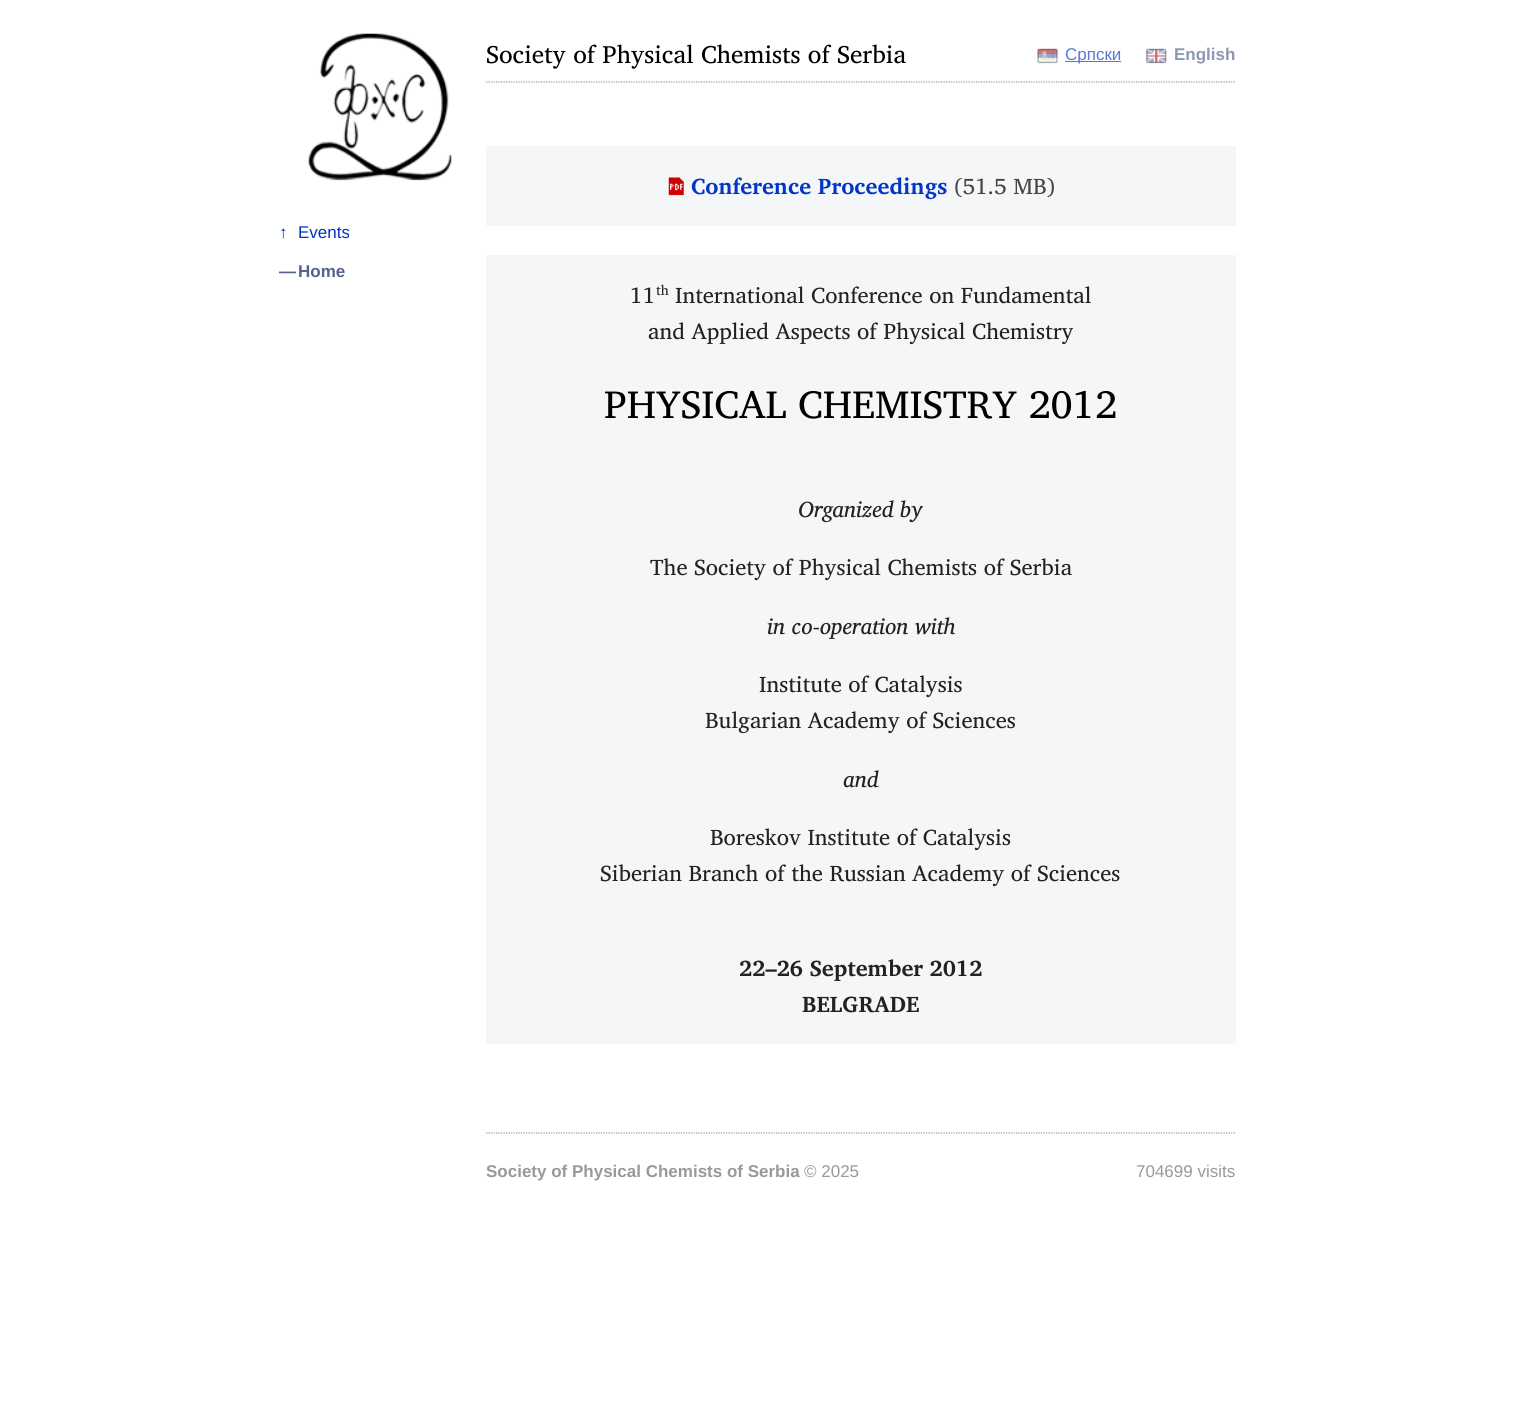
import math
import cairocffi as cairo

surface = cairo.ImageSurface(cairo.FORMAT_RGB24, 1521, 1413)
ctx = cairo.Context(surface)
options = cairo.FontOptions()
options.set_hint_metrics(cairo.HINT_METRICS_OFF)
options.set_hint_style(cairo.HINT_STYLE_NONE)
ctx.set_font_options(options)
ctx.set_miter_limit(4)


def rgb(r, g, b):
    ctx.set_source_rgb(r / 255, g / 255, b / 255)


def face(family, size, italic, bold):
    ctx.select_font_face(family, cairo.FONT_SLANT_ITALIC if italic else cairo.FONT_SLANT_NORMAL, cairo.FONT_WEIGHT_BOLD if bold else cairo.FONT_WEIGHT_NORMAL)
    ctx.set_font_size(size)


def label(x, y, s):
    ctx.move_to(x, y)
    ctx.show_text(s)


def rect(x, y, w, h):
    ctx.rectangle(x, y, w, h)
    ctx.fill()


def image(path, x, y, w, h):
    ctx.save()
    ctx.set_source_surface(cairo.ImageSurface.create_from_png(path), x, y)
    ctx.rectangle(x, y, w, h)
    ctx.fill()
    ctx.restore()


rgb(255, 255, 255)
ctx.paint()
image('image0.png', 308, 33, 144, 148)
face('Charis SIL', 25, 0, 0)
rgb(0, 0, 0)
label(486, 63, 'Society of Physical Chemists of Serbia')
image('image1.png', 1037, 48, 21, 16)
rgb(87, 122, 218)
rect(1065, 61, 56, 1)
face('Liberation Sans', 17, 0, 0)
label(1065, 60, 'Српски')
image('image2.png', 1146, 48, 21, 16)
face('Liberation Sans', 17, 0, 1)
rgb(142, 152, 179)
label(1174, 60, 'English')
face('Liberation Sans', 17, 0, 0)
rgb(0, 53, 199)
label(279, 238, '↑')
label(298, 238, 'Events')
face('Liberation Sans', 17, 0, 1)
rgb(84, 99, 140)
label(279, 277, '—')
label(298, 277, 'Home')
ctx.new_path()
ctx.move_to(486, 82)
ctx.line_to(1236, 82)
rgb(153, 153, 153)
ctx.set_line_width(1.2)
ctx.set_dash([1.25, 1.25])
ctx.stroke()
rgb(245, 246, 247)
rect(486, 146, 750, 80)
image('image3.png', 668, 177, 16, 19)
face('Charis SIL', 22.5, 0, 1)
rgb(0, 53, 199)
label(691, 194, 'Conference Proceedings')
face('Charis SIL', 22.5, 0, 0)
rgb(68, 68, 68)
label(954, 194, '(51.5 MB)')
rgb(245, 246, 247)
rect(486, 255, 750, 789)
rgb(34, 34, 34)
label(630, 303, '11')
face('Charis SIL', 14, 0, 0)
label(656, 295, 'th')
face('Charis SIL', 22.5, 0, 0)
label(675, 303, 'International Conference on Fundamental')
label(648, 339, 'and Applied Aspects of Physical Chemistry')
face('Charis SIL', 39.4, 0, 0)
rgb(0, 0, 0)
label(604, 418, 'PHYSICAL CHEMISTRY 2012')
face('Charis SIL', 22.5, 1, 0)
rgb(34, 34, 34)
label(798, 517, 'Organized by')
face('Charis SIL', 22.5, 0, 0)
label(650, 575, 'The Society of Physical Chemists of Serbia')
face('Charis SIL', 22.5, 1, 0)
label(767, 634, 'in co-operation with')
face('Charis SIL', 22.5, 0, 0)
label(759, 692, 'Institute of Catalysis')
label(705, 728, 'Bulgarian Academy of Sciences')
face('Charis SIL', 22.5, 1, 0)
label(843, 787, 'and')
face('Charis SIL', 22.5, 0, 0)
label(710, 845, 'Boreskov Institute of Catalysis')
label(600, 881, 'Siberian Branch of the Russian Academy of Sciences')
face('Charis SIL', 22.5, 0, 1)
label(739, 976, '22–26 September 2012')
label(802, 1012, 'BELGRADE')
ctx.new_path()
ctx.move_to(486, 1133)
ctx.line_to(1236, 1133)
rgb(153, 153, 153)
ctx.stroke()
face('Liberation Sans', 17, 0, 1)
label(486, 1177, 'Society of Physical Chemists of Serbia')
face('Liberation Sans', 17, 0, 0)
label(804, 1177, '© 2025')
label(1136, 1177, '704699 visits')
surface.write_to_png('render.png')
